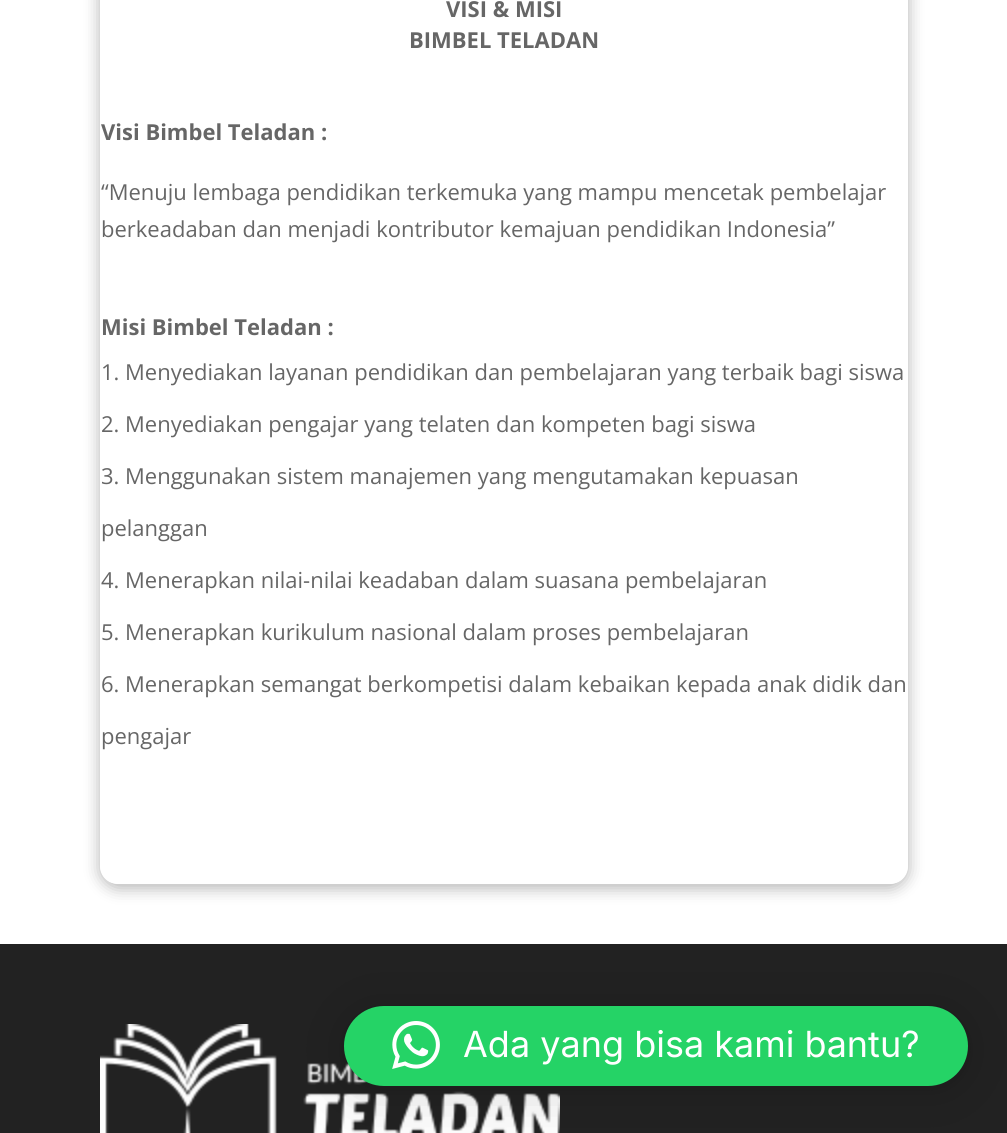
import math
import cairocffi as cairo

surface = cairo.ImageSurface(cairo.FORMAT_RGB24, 1007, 1133)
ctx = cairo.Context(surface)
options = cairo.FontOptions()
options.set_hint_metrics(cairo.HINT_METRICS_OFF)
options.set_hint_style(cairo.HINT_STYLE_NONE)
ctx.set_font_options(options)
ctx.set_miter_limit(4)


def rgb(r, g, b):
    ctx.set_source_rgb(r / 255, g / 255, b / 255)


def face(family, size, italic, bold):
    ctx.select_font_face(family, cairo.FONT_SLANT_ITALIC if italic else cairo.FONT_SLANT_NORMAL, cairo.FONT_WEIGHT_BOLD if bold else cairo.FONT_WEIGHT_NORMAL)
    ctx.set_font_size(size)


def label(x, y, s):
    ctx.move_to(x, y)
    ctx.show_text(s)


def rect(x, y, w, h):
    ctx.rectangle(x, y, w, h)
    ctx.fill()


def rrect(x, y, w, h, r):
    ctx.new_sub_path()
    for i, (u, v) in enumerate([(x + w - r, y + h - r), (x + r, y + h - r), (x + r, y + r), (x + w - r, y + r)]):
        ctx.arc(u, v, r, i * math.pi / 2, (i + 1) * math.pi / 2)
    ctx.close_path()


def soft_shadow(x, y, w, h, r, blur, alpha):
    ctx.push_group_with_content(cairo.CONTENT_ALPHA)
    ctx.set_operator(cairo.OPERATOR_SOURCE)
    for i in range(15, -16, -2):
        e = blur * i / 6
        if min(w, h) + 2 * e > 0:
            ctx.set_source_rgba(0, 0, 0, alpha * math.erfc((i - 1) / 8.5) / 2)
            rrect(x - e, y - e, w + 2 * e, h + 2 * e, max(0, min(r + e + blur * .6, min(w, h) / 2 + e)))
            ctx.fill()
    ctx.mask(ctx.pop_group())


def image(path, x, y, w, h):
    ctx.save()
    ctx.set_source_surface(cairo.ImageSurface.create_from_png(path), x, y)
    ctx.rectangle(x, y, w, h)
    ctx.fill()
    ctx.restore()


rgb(255, 255, 255)
ctx.paint()
ctx.save()
ctx.set_fill_rule(cairo.FILL_RULE_EVEN_ODD)
ctx.new_path()
ctx.move_to(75, 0)
ctx.line_to(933, 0)
ctx.line_to(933, 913)
ctx.line_to(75, 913)
ctx.close_path()
ctx.move_to(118, -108)
ctx.line_to(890, -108)
ctx.curve_to(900, -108, 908, -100, 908, -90)
ctx.line_to(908, 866)
ctx.curve_to(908, 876, 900, 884, 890, 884)
ctx.line_to(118, 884)
ctx.curve_to(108, 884, 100, 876, 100, 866)
ctx.line_to(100, -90)
ctx.curve_to(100, -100, 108, -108, 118, -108)
ctx.close_path()
ctx.clip()
rgb(0, 0, 0)
soft_shadow(100, -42, 808, 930, 18, 8, 0.3)
ctx.restore()
face('Open Sans', 22, 0, 1)
rgb(102, 102, 102)
label(446, 17, 'VISI & MISI')
label(409, 48, 'BIMBEL TELADAN')
label(101, 140, 'Visi Bimbel Teladan :')
face('Open Sans', 22, 0, 0)
label(101, 200, '“Menuju lembaga pendidikan terkemuka yang mampu mencetak pembelajar')
label(101, 237, 'berkeadaban dan menjadi kontributor kemajuan pendidikan Indonesia”')
face('Open Sans', 22, 0, 1)
label(101, 335, 'Misi Bimbel Teladan :')
face('Open Sans', 22, 0, 0)
label(101, 380, '1. Menyediakan layanan pendidikan dan pembelajaran yang terbaik bagi siswa')
label(101, 432, '2. Menyediakan pengajar yang telaten dan kompeten bagi siswa')
label(101, 484, '3. Menggunakan sistem manajemen yang mengutamakan kepuasan')
label(101, 536, 'pelanggan')
label(101, 588, '4. Menerapkan nilai-nilai keadaban dalam suasana pembelajaran')
label(101, 640, '5. Menerapkan kurikulum nasional dalam proses pembelajaran')
label(101, 692, '6. Menerapkan semangat berkompetisi dalam kebaikan kepada anak didik dan')
label(101, 744, 'pengajar')
rgb(34, 34, 34)
rect(0, 944, 1007, 189)
image('image0.png', 100, 1024, 460, 109)
rgb(0, 0, 0)
soft_shadow(344, 1010, 624, 80, 40, 32, 0.16)
soft_shadow(344, 1008, 624, 80, 40, 6, 0.06)
rgb(37, 211, 102)
rrect(344, 1006, 624, 80, 40)
ctx.fill()
image('image1.png', 392, 1021, 48, 48)
face('Inter', 36, 0, 0)
rgb(255, 255, 255)
label(463, 1057, 'Ada yang bisa kami bantu?')
surface.write_to_png('render.png')
